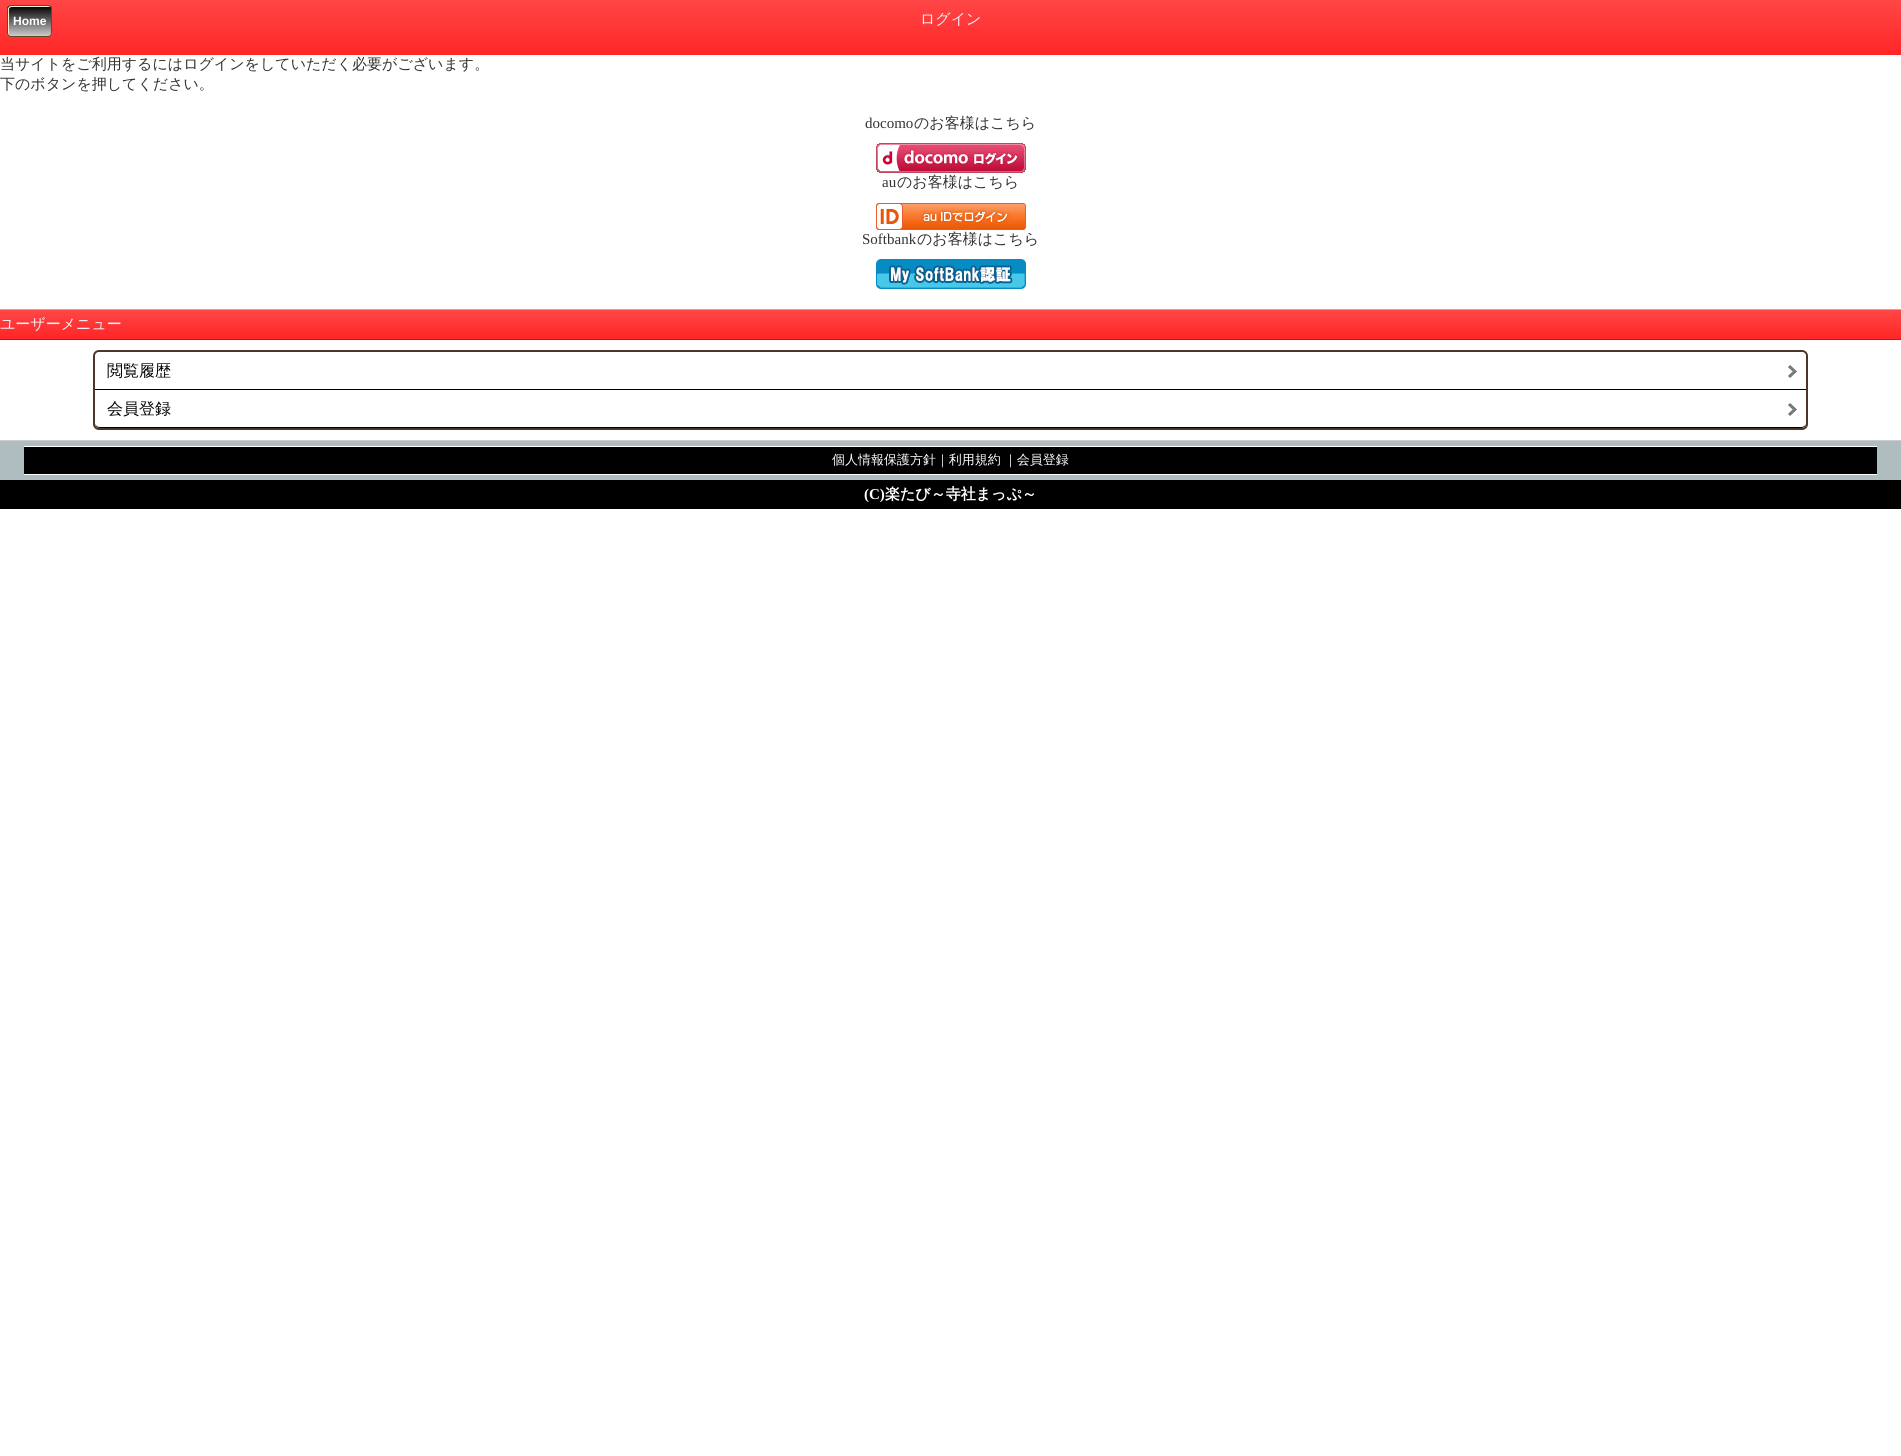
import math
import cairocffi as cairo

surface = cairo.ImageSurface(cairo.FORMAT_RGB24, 1901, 1456)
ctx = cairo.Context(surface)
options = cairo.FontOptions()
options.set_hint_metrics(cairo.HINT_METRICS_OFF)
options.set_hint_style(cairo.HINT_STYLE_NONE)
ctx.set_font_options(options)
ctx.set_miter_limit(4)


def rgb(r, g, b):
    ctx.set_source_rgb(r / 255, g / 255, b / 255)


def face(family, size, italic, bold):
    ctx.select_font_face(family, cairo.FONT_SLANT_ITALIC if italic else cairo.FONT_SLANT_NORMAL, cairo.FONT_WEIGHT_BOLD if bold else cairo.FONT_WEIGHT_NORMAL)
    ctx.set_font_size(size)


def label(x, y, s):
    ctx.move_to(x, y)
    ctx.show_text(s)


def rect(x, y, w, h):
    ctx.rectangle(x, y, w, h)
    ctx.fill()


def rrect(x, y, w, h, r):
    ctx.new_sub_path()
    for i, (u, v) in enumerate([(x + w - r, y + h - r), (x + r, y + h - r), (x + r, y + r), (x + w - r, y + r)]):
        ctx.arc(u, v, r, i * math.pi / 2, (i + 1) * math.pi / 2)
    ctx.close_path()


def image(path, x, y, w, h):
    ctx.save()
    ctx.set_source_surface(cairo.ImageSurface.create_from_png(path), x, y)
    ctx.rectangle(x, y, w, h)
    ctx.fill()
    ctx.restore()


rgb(255, 255, 255)
ctx.paint()
gradient = cairo.LinearGradient(0, 0, 0, 55)
gradient.add_color_stop_rgba(0, 1, 0.275, 0.275, 1)
gradient.add_color_stop_rgba(1, 1, 0.149, 0.149, 1)
ctx.set_source(gradient)
rect(0, 0, 1901, 55)
ctx.save()
rrect(7, 5, 45, 32, 4)
ctx.clip()
gradient = cairo.LinearGradient(8, 6, 8, 36)
gradient.add_color_stop_rgba(0, 0, 0, 0, 1)
gradient.add_color_stop_rgba(1, 0.8, 0.8, 0.8, 1)
ctx.set_source(gradient)
rect(7, 6, 45, 30)
ctx.restore()
rgb(255, 242, 215)
ctx.new_path()
ctx.move_to(12, 7)
ctx.line_to(50, 7)
ctx.curve_to(50, 6, 49, 6, 48, 6)
ctx.line_to(11, 6)
ctx.curve_to(9, 6, 8, 7, 8, 9)
ctx.line_to(8, 33)
ctx.curve_to(8, 34, 8, 35, 9, 35)
ctx.line_to(9, 14)
ctx.curve_to(9, 11, 8, 7, 12, 7)
ctx.close_path()
ctx.fill()
rrect(7.5, 5.5, 44, 31, 3.5)
rgb(99, 72, 37)
ctx.set_line_width(1)
ctx.stroke()
face('Liberation Sans', 12, 0, 1)
rgb(255, 255, 255)
label(13, 25, 'Home')
face('WenQuanYi Zen Hei Medium', 15, 0, 0)
rgb(248, 238, 246)
label(920, 24, 'ログイン')
rgb(51, 51, 51)
label(0, 69, '当サイトをご利用するにはログインをしていただく必要がございます。')
label(0, 89, '下のボタンを押してください。')
face('Liberation Serif', 15, 0, 0)
label(865, 128, 'docomo')
face('WenQuanYi Zen Hei Medium', 15, 0, 0)
label(914, 128, 'のお客様はこちら')
image('image0.png', 876, 143, 150, 30)
face('Liberation Serif', 15, 0, 0)
label(882, 187, 'au')
face('WenQuanYi Zen Hei Medium', 15, 0, 0)
label(897, 187, 'のお客様はこちら')
image('image1.png', 876, 203, 150, 27)
face('Liberation Serif', 15, 0, 0)
label(862, 244, 'Softbank')
face('WenQuanYi Zen Hei Medium', 15, 0, 0)
label(917, 244, 'のお客様はこちら')
image('image2.png', 876, 259, 150, 30)
gradient = cairo.LinearGradient(0, 310, 0, 339)
gradient.add_color_stop_rgba(0, 1, 0.275, 0.275, 1)
gradient.add_color_stop_rgba(1, 1, 0.149, 0.149, 1)
ctx.set_source(gradient)
rect(0, 310, 1901, 29)
rgb(222, 153, 190)
rect(0, 309, 1901, 1)
rgb(207, 2, 88)
rect(0, 339, 1901, 1)
rgb(248, 238, 246)
label(0, 329, 'ユーザーメニュー')
rrect(94, 351, 1713, 78, 5)
rgb(75, 54, 39)
ctx.set_line_width(2)
ctx.stroke()
rgb(255, 255, 255)
ctx.new_path()
ctx.move_to(100, 352)
ctx.curve_to(97, 352, 95, 354, 95, 357)
ctx.curve_to(95, 355, 97, 353, 100, 353)
ctx.line_to(1801, 353)
ctx.curve_to(1804, 353, 1806, 355, 1806, 357)
ctx.curve_to(1806, 354, 1804, 352, 1801, 352)
ctx.close_path()
ctx.fill()
rgb(0, 0, 0)
rect(95, 389, 1711, 1)
image('image3.png', 1788, 365, 9, 13)
face('WenQuanYi Zen Hei Medium', 16, 0, 0)
label(107, 376, '閲覧履歴')
ctx.new_path()
ctx.move_to(100, 428)
ctx.line_to(1801, 428)
ctx.curve_to(1804, 428, 1806, 426, 1806, 423)
ctx.curve_to(1806, 425, 1804, 427, 1801, 427)
ctx.line_to(100, 427)
ctx.curve_to(97, 427, 95, 425, 95, 423)
ctx.curve_to(95, 426, 97, 428, 100, 428)
ctx.close_path()
ctx.fill()
image('image3.png', 1788, 403, 9, 13)
label(107, 414, '会員登録')
rgb(175, 189, 192)
rect(0, 441, 1901, 39)
rgb(204, 204, 204)
rect(0, 440, 1901, 1)
rgb(0, 0, 0)
rect(24, 447, 1853, 27)
rgb(255, 255, 255)
rect(24, 446, 1853, 1)
rect(24, 474, 1853, 1)
face('WenQuanYi Zen Hei Medium', 13, 0, 0)
label(832, 464, '個人情報保護方針｜利用規約')
label(1004, 464, '｜会員登録')
rgb(0, 0, 0)
rect(0, 480, 1901, 29)
face('Liberation Serif', 15, 0, 1)
rgb(255, 255, 255)
label(864, 499, '(C)')
face('WenQuanYi Zen Hei', 15, 0, 1)
label(885, 499, '楽たび～寺社まっぷ～')
surface.write_to_png('render.png')
